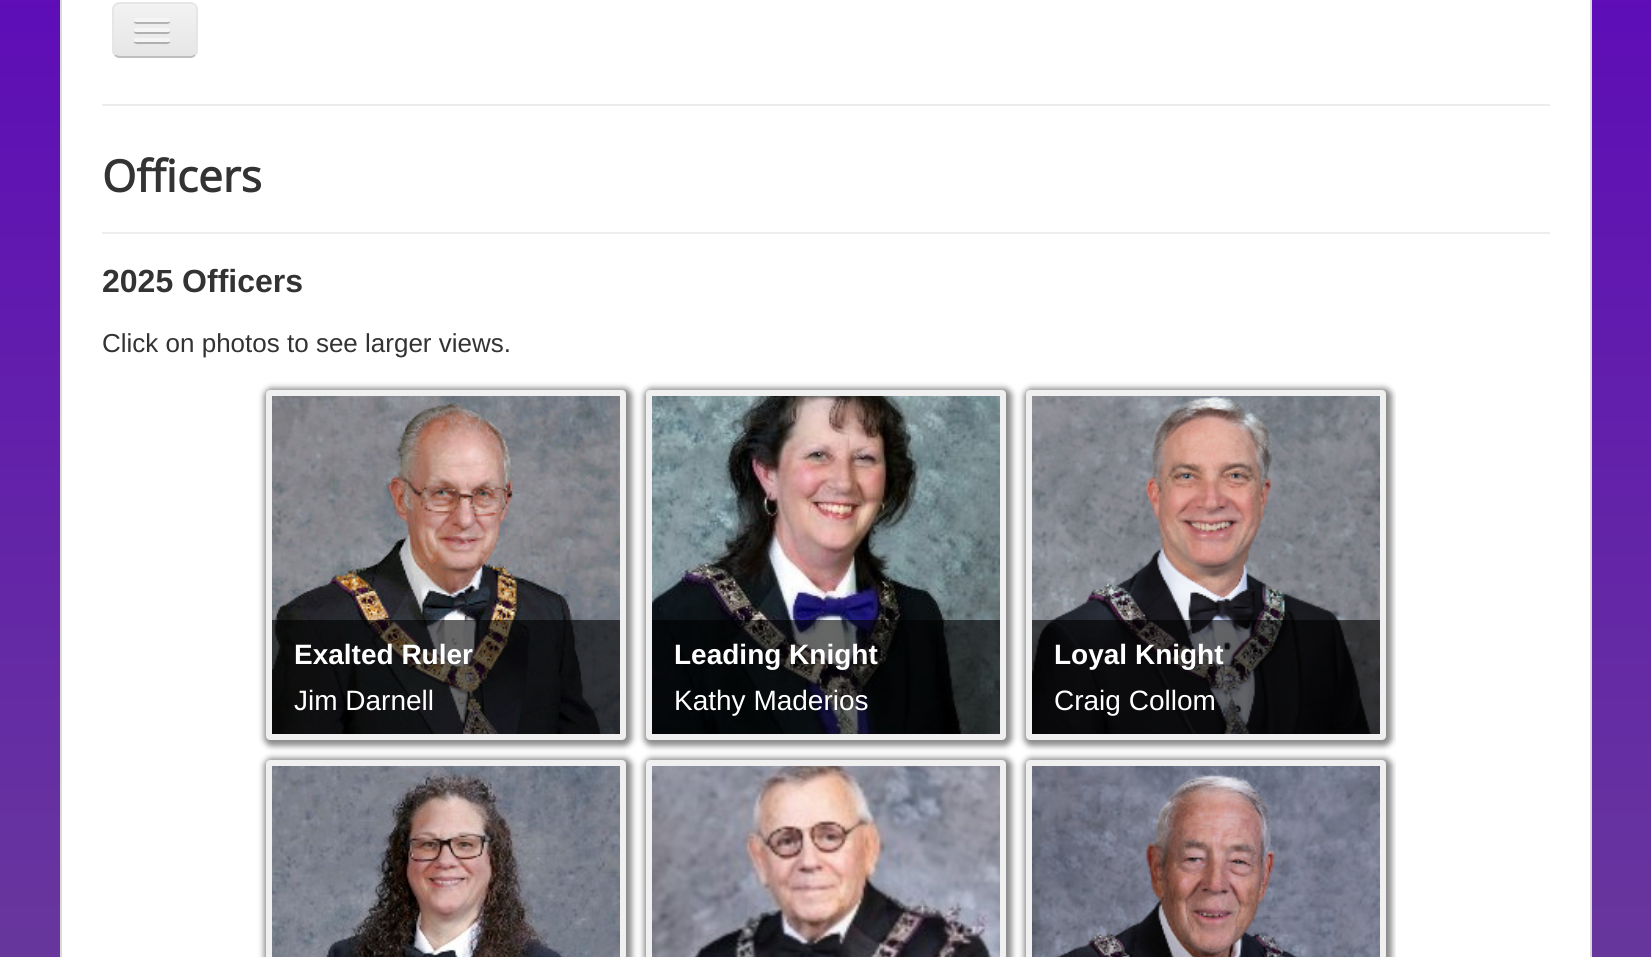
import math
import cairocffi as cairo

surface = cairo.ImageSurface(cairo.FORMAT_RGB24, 1651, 957)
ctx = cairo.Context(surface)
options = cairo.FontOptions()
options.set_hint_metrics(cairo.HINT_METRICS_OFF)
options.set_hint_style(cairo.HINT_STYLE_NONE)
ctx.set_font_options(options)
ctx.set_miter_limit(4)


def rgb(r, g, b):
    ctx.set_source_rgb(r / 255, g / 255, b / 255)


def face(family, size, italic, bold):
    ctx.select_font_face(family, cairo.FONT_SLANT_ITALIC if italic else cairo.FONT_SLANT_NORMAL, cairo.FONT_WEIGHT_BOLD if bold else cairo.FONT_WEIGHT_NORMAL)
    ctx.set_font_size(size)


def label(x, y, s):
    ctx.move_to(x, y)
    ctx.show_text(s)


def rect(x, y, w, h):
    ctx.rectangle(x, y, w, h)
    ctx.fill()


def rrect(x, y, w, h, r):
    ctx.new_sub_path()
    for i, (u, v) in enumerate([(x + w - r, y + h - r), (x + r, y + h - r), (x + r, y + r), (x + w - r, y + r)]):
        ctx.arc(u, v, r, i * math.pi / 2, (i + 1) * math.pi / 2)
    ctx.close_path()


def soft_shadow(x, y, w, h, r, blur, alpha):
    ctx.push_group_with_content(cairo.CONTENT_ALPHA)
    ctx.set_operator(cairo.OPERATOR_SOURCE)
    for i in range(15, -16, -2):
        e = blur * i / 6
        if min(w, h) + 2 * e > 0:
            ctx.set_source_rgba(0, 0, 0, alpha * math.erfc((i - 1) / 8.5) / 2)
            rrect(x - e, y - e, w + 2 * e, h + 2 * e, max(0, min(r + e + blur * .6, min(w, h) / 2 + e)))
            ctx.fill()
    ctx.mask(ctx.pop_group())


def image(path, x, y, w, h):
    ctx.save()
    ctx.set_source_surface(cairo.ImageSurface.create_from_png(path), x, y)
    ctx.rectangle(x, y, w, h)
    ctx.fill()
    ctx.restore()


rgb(255, 255, 255)
ctx.paint()
image('image0.png', 0, 0, 1651, 957)
rgb(255, 255, 255)
ctx.rectangle(61, -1, 1530, 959)
ctx.fill_preserve()
rgb(217, 217, 217)
ctx.stroke()
rgb(236, 236, 236)
rect(102, 104, 1448, 2)
ctx.save()
rrect(112, 2, 86, 56, 8)
ctx.clip()
gradient = cairo.LinearGradient(155, 4, 155, 56)
gradient.add_color_stop_rgba(0, 0.949, 0.949, 0.949, 1)
gradient.add_color_stop_rgba(1, 0.902, 0.902, 0.902, 1)
ctx.set_source(gradient)
rect(112, 4, 86, 52)
ctx.restore()
rgb(243, 243, 243)
ctx.new_path()
ctx.move_to(120, 6)
ctx.line_to(190, 6)
ctx.curve_to(193, 6, 196, 9, 196, 12)
ctx.curve_to(196, 1, 187, 4, 178, 4)
ctx.line_to(132, 4)
ctx.curve_to(123, 4, 114, 1, 114, 12)
ctx.curve_to(114, 9, 117, 6, 120, 6)
ctx.close_path()
ctx.fill()
ctx.new_path()
ctx.move_to(195, 55)
ctx.curve_to(193.5, 56.5, 192, 57, 190, 57)
ctx.line_to(120, 57)
ctx.curve_to(118, 57, 116.5, 56.5, 115, 55)
rgb(191, 191, 191)
ctx.stroke()
ctx.new_path()
ctx.move_to(115, 55)
ctx.curve_to(113.5, 53.5, 113, 52, 113, 50)
ctx.line_to(113, 10)
ctx.curve_to(113, 8, 113.5, 6.5, 115, 5)
ctx.curve_to(116.5, 3.5, 118, 3, 120, 3)
ctx.line_to(190, 3)
ctx.curve_to(192, 3, 193.5, 3.5, 195, 5)
ctx.curve_to(196.5, 6.5, 197, 8, 197, 10)
ctx.line_to(197, 50)
ctx.curve_to(197, 52, 196.5, 53.5, 195, 55)
rgb(230, 230, 230)
ctx.stroke()
rgb(179, 179, 179)
ctx.new_path()
ctx.move_to(134.5, 21)
ctx.curve_to(132, 25, 141, 24, 141.5, 24)
ctx.line_to(162.5, 24)
ctx.curve_to(163, 24, 172, 25, 169.5, 21)
ctx.curve_to(169.5, 21.5, 168.5, 22, 168, 22)
ctx.line_to(136, 22)
ctx.curve_to(135.5, 22, 134.5, 21.5, 134.5, 21)
ctx.close_path()
ctx.fill()
rgb(245, 245, 245)
rrect(134, 18, 36, 4, 2)
ctx.fill()
rgb(176, 176, 176)
ctx.new_path()
ctx.move_to(134.5, 31)
ctx.curve_to(132, 35, 141, 34, 141.5, 34)
ctx.line_to(162.5, 34)
ctx.curve_to(163, 34, 172, 35, 169.5, 31)
ctx.curve_to(169.5, 31.5, 168.5, 32, 168, 32)
ctx.line_to(136, 32)
ctx.curve_to(135.5, 32, 134.5, 31.5, 134.5, 31)
ctx.close_path()
ctx.fill()
rgb(245, 245, 245)
rrect(134, 28, 36, 4, 2)
ctx.fill()
rgb(175, 175, 175)
ctx.new_path()
ctx.move_to(134.5, 41)
ctx.curve_to(132, 45, 141, 44, 141.5, 44)
ctx.line_to(162.5, 44)
ctx.curve_to(163, 44, 172, 45, 169.5, 41)
ctx.curve_to(169.5, 41.5, 168.5, 42, 168, 42)
ctx.line_to(136, 42)
ctx.curve_to(135.5, 42, 134.5, 41.5, 134.5, 41)
ctx.close_path()
ctx.fill()
rgb(245, 245, 245)
rrect(134, 38, 36, 4, 2)
ctx.fill()
rgb(238, 238, 238)
rect(102, 232, 1448, 2)
face('Open Sans', 44, 0, 1)
rgb(51, 51, 51)
label(102, 192, 'Officers')
face('Liberation Sans', 32, 0, 1)
label(102, 292, '2025 Officers')
face('Liberation Sans', 26, 0, 0)
label(102, 352, 'Click on photos to see larger views.')
rgb(139, 139, 139)
soft_shadow(264, 388, 368, 358, 8, 3, 1)
rrect(269, 393, 354, 344, 1)
rgb(240, 240, 240)
ctx.set_line_width(6)
ctx.stroke()
image('image1.png', 272, 396, 348, 338)
ctx.set_source_rgba(0, 0, 0, 0.6)
rect(272, 620, 348, 114)
face('Liberation Sans', 28, 0, 1)
rgb(255, 255, 255)
label(294, 664, 'Exalted Ruler')
face('Liberation Sans', 28, 0, 0)
label(294, 710, 'Jim Darnell')
rgb(139, 139, 139)
soft_shadow(644, 388, 368, 358, 8, 3, 1)
rrect(649, 393, 354, 344, 1)
rgb(240, 240, 240)
ctx.stroke()
image('image2.png', 652, 396, 348, 338)
ctx.set_source_rgba(0, 0, 0, 0.6)
rect(652, 620, 348, 114)
face('Liberation Sans', 28, 0, 1)
rgb(255, 255, 255)
label(674, 664, 'Leading Knight')
face('Liberation Sans', 28, 0, 0)
label(674, 710, 'Kathy Maderios')
ctx.save()
ctx.rectangle(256, 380, 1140, 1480)
ctx.clip()
rgb(139, 139, 139)
soft_shadow(1024, 388, 368, 358, 8, 3, 1)
ctx.restore()
rrect(1029, 393, 354, 344, 1)
rgb(240, 240, 240)
ctx.stroke()
image('image3.png', 1032, 396, 348, 338)
ctx.set_source_rgba(0, 0, 0, 0.6)
rect(1032, 620, 348, 114)
face('Liberation Sans', 28, 0, 1)
rgb(255, 255, 255)
label(1054, 664, 'Loyal Knight')
face('Liberation Sans', 28, 0, 0)
label(1054, 710, 'Craig Collom')
rgb(139, 139, 139)
soft_shadow(264, 758, 368, 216, 8, 3, 1)
rrect(269, 763, 354, 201, 1)
rgb(240, 240, 240)
ctx.stroke()
image('image4.png', 272, 766, 348, 191)
rgb(139, 139, 139)
soft_shadow(644, 758, 368, 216, 8, 3, 1)
rrect(649, 763, 354, 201, 1)
rgb(240, 240, 240)
ctx.stroke()
image('image5.png', 652, 766, 348, 191)
ctx.save()
ctx.rectangle(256, 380, 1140, 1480)
ctx.clip()
rgb(139, 139, 139)
soft_shadow(1024, 758, 368, 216, 8, 3, 1)
ctx.restore()
rrect(1029, 763, 354, 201, 1)
ctx.stroke()
image('image6.png', 1032, 766, 348, 191)
surface.write_to_png('render.png')
